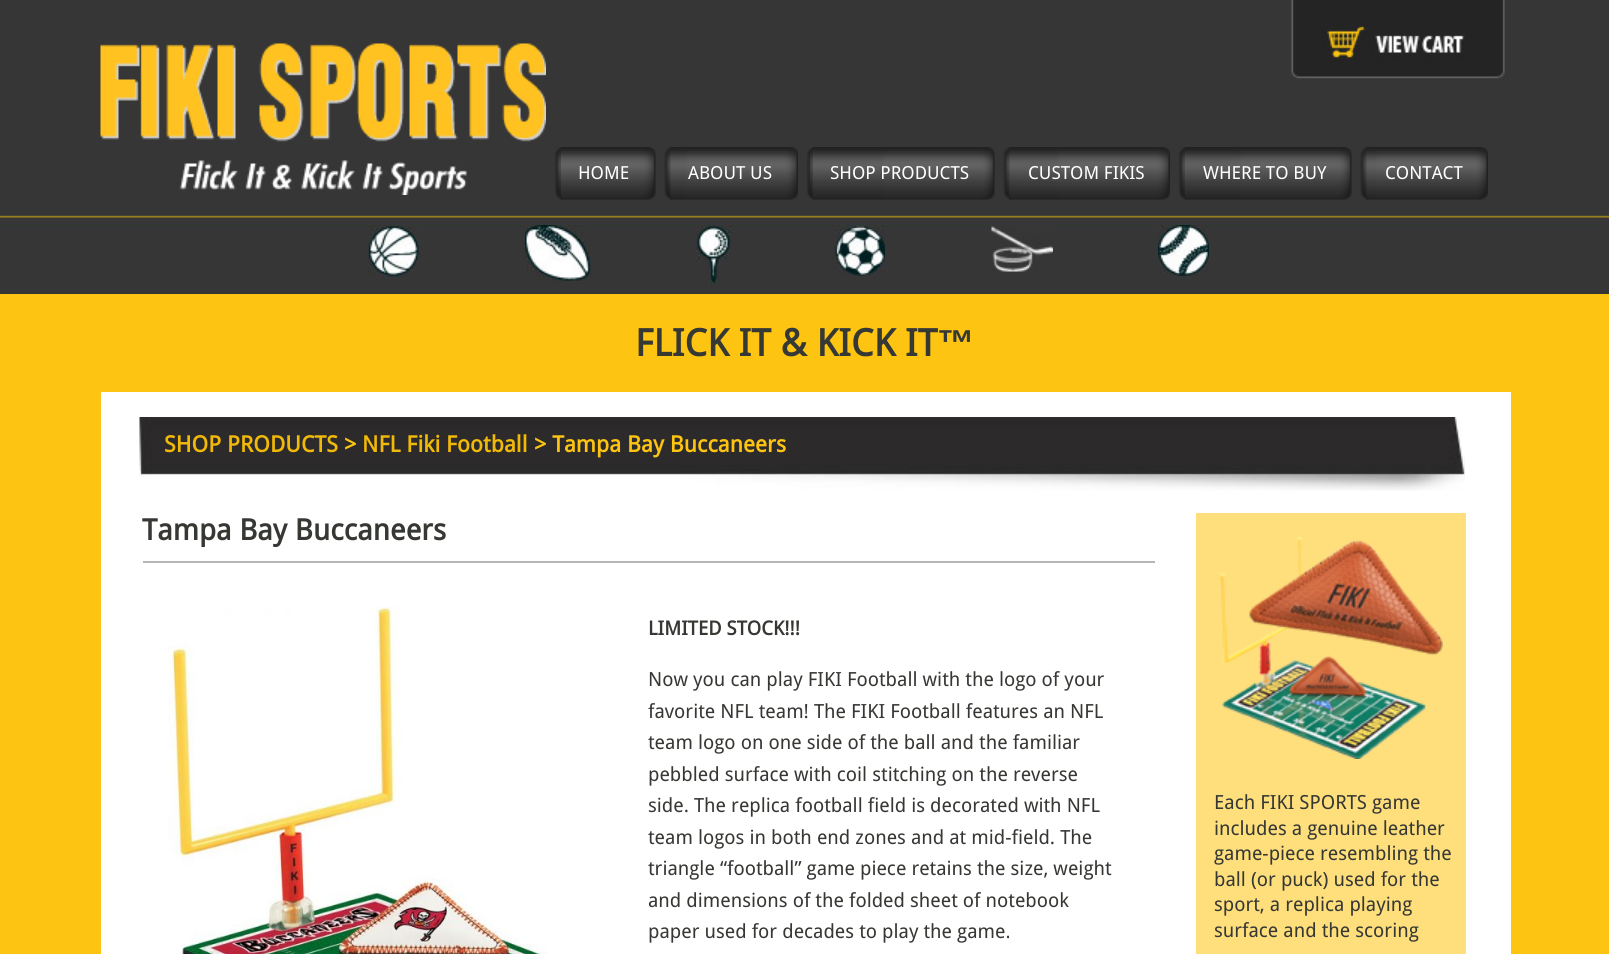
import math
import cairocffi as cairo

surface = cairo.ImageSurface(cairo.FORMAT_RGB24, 1609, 954)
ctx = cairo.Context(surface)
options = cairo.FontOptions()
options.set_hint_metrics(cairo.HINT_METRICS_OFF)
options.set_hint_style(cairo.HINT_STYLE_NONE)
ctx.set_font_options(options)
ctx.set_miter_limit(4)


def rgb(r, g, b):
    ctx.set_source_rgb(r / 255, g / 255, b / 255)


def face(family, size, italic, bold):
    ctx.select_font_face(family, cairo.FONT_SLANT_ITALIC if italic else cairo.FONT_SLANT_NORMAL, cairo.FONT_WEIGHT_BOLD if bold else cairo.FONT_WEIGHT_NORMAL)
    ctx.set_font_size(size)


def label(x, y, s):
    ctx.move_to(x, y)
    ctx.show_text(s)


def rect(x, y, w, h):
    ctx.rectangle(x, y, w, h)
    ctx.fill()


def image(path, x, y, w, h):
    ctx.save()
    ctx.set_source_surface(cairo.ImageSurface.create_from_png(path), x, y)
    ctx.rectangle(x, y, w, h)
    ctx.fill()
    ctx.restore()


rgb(253, 196, 17)
ctx.paint()
image('image0.png', 0, 0, 1609, 294)
image('image1.png', 100, 43, 446, 152)
image('image2.png', 1291, 0, 214, 79)
image('image3.png', 555, 147, 8, 53)
image('image4.png', 561, 147, 95, 53)
face('Droid Sans', 18, 0, 0)
rgb(255, 255, 255)
label(578, 179, 'HOME')
image('image5.png', 664, 147, 9, 53)
image('image6.png', 670, 147, 128, 53)
label(688, 179, 'ABOUT US')
image('image7.png', 807, 147, 8, 53)
image('image8.png', 813, 147, 182, 53)
label(830, 179, 'SHOP PRODUCTS')
image('image5.png', 1003, 147, 9, 53)
image('image9.png', 1009, 147, 161, 53)
label(1028, 179, 'CUSTOM FIKIS')
image('image3.png', 1179, 147, 8, 53)
image('image10.png', 1185, 147, 167, 53)
label(1203, 179, 'WHERE TO BUY')
image('image5.png', 1360, 147, 9, 53)
image('image11.png', 1366, 147, 122, 53)
label(1385, 179, 'CONTACT')
image('image12.png', 367, 225, 53, 53)
image('image13.png', 525, 225, 66, 56)
image('image14.png', 696, 225, 35, 59)
image('image15.png', 835, 225, 50, 51)
image('image16.png', 990, 225, 63, 47)
image('image17.png', 1158, 225, 51, 51)
face('Droid Sans', 37.5, 0, 1)
rgb(54, 56, 52)
label(635, 356, 'FLICK IT & KICK IT')
face('Liberation Sans', 37.5, 0, 1)
label(937, 356, '™')
rgb(255, 255, 255)
rect(101, 392, 1410, 562)
image('image18.png', 139, 417, 1326, 74)
face('Droid Sans', 22.5, 0, 1)
rgb(241, 185, 8)
label(164, 452, 'SHOP PRODUCTS')
rgb(253, 196, 17)
label(344, 452, '>')
rgb(241, 185, 8)
label(362, 452, 'NFL Fiki Football')
rgb(253, 196, 17)
label(534, 452, '> Tampa Bay Buccaneers')
rgb(182, 182, 182)
rect(143, 561, 1012, 2)
face('Droid Sans', 29.25, 0, 1)
rgb(54, 56, 52)
label(142, 540, 'Tampa Bay Buccaneers')
image('image19.png', 168, 606, 380, 348)
face('Droid Sans', 19.5, 0, 1)
label(648, 635, 'LIMITED STOCK!!!')
face('Droid Sans', 19.5, 0, 0)
label(648, 686, 'Now you can play FIKI Football with the logo of your')
label(648, 718, 'favorite NFL team! The FIKI Football features an NFL')
label(648, 749, 'team logo on one side of the ball and the familiar')
label(648, 781, 'pebbled surface with coil stitching on the reverse')
label(648, 812, 'side. The replica football field is decorated with NFL')
label(648, 844, 'team logos in both end zones and at mid-field. The')
label(648, 875, 'triangle “football” game piece retains the size, weight')
label(648, 907, 'and dimensions of the folded sheet of notebook')
label(648, 938, 'paper used for decades to play the game.')
rgb(254, 223, 124)
rect(1196, 513, 270, 441)
image('image20.png', 1219, 537, 224, 222)
rgb(54, 56, 52)
label(1214, 809, 'Each FIKI SPORTS game')
label(1214, 835, 'includes a genuine leather')
label(1214, 860, 'game-piece resembling the')
label(1214, 886, 'ball (or puck) used for the')
label(1214, 911, 'sport, a replica playing')
label(1214, 937, 'surface and the scoring')
surface.write_to_png('render.png')
